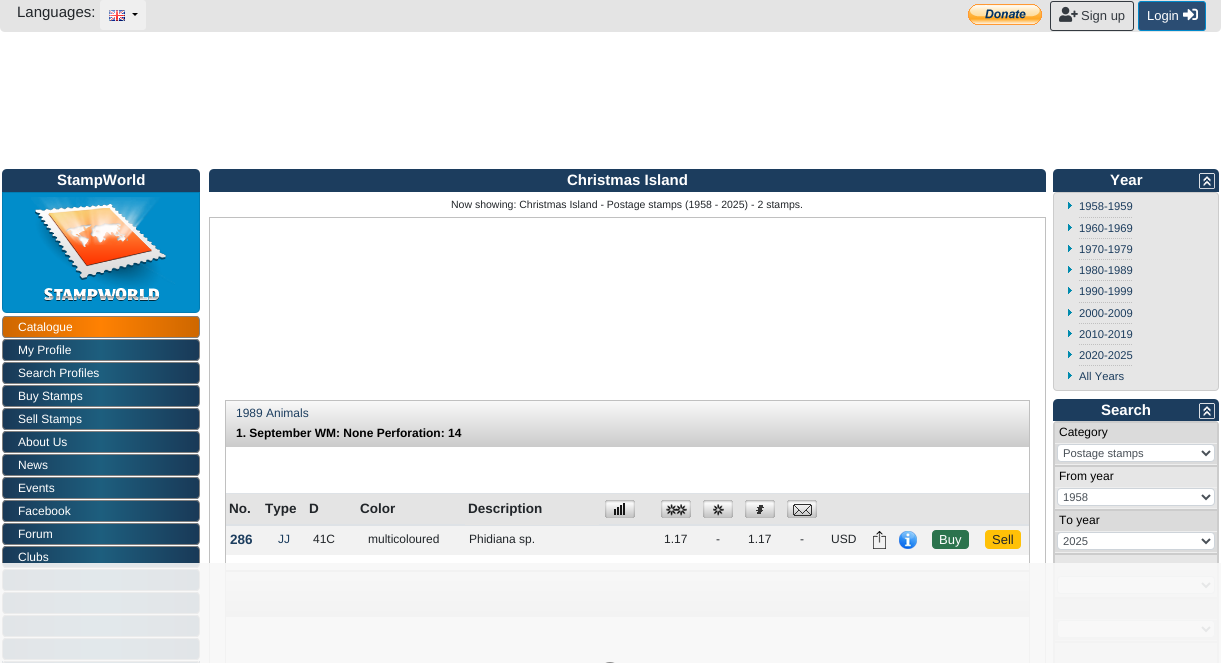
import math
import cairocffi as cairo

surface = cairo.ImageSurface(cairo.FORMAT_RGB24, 1221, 663)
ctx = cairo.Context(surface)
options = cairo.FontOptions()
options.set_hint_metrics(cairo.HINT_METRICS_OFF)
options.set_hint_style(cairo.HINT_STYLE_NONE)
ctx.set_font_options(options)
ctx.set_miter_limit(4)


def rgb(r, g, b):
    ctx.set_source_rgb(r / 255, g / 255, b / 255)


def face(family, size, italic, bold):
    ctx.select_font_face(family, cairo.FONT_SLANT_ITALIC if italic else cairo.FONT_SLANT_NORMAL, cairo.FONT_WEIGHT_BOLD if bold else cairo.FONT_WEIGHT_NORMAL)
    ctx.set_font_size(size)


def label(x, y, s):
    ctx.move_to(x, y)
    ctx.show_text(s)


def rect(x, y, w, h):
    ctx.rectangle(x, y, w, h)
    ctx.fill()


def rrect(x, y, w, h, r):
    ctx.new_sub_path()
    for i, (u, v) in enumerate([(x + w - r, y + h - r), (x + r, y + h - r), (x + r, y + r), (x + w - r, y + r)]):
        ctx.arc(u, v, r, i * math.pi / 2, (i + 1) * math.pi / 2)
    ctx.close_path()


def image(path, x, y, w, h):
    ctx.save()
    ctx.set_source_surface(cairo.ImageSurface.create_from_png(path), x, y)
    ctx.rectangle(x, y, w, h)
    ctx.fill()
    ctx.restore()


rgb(255, 255, 255)
ctx.paint()
rgb(228, 228, 228)
ctx.new_path()
ctx.move_to(0, 0)
ctx.line_to(1221, 0)
ctx.line_to(1221, 27)
ctx.curve_to(1221, 30, 1219, 32, 1216, 32)
ctx.line_to(5, 32)
ctx.curve_to(2, 32, 0, 30, 0, 27)
ctx.close_path()
ctx.fill()
face('Liberation Sans', 15, 0, 0)
rgb(33, 37, 41)
label(17, 17, 'Languages:')
rgb(239, 239, 239)
rrect(100, 0, 46, 30, 3)
ctx.fill()
image('image0.png', 109, 10, 16, 11)
rgb(0, 0, 0)
ctx.new_path()
ctx.move_to(132, 13)
ctx.line_to(138, 13)
ctx.line_to(135, 16)
ctx.close_path()
ctx.fill()
image('image1.png', 968, 4, 74, 21)
rrect(1050.5, 1.5, 83, 29, 2.5)
rgb(52, 58, 64)
ctx.set_line_width(1)
ctx.stroke()
image('image2.png', 1059, 6, 19, 16)
face('Liberation Sans', 13, 0, 0)
label(1081, 20, 'Sign up')
rgb(43, 77, 115)
rrect(1138.5, 1.5, 67, 29, 2.5)
ctx.fill_preserve()
rgb(0, 137, 203)
ctx.stroke()
rgb(255, 255, 255)
label(1147, 20, 'Login')
image('image3.png', 1183, 8, 15, 13)
rgb(28, 61, 94)
ctx.new_path()
ctx.move_to(7, 169)
ctx.line_to(195, 169)
ctx.curve_to(198, 169, 200, 171, 200, 174)
ctx.line_to(200, 192)
ctx.line_to(2, 192)
ctx.line_to(2, 174)
ctx.curve_to(2, 171, 4, 169, 7, 169)
ctx.close_path()
ctx.fill()
face('Liberation Sans', 15, 0, 1)
rgb(255, 255, 255)
label(57, 185, 'StampWorld')
rgb(1, 141, 202)
ctx.new_path()
ctx.move_to(2, 192)
ctx.line_to(200, 192)
ctx.line_to(200, 308)
ctx.curve_to(200, 311, 198, 313, 195, 313)
ctx.line_to(7, 313)
ctx.curve_to(4, 313, 2, 311, 2, 308)
ctx.close_path()
ctx.fill()
ctx.new_path()
ctx.move_to(2.5, 192.5)
ctx.line_to(199.5, 192.5)
ctx.line_to(199.5, 308)
ctx.curve_to(199.5, 310.5, 197.5, 312.5, 195, 312.5)
ctx.line_to(7, 312.5)
ctx.curve_to(4.5, 312.5, 2.5, 310.5, 2.5, 308)
ctx.close_path()
ctx.set_source_rgba(0, 0, 0, 0.12)
ctx.stroke()
image('image4.png', 31, 197, 144, 104)
ctx.save()
rrect(2, 316, 198, 22, 4)
ctx.clip()
gradient = cairo.LinearGradient(3, 327, 199, 327)
gradient.add_color_stop_rgba(0, 0.808, 0.404, 0, 1)
gradient.add_color_stop_rgba(0.5, 1, 0.506, 0.008, 1)
gradient.add_color_stop_rgba(1, 0.808, 0.404, 0, 1)
ctx.set_source(gradient)
rect(3, 316, 196, 22)
ctx.restore()
rrect(2.5, 316.5, 197, 21, 3.5)
rgb(128, 128, 128)
ctx.stroke()
face('Liberation Sans', 12, 0, 0)
rgb(255, 255, 255)
label(18, 331, 'Catalogue')
ctx.save()
rrect(2, 339, 198, 22, 4)
ctx.clip()
gradient = cairo.LinearGradient(3, 350, 199, 350)
gradient.add_color_stop_rgba(0, 0.098, 0.224, 0.341, 1)
gradient.add_color_stop_rgba(0.5, 0.114, 0.369, 0.494, 1)
gradient.add_color_stop_rgba(1, 0.098, 0.224, 0.341, 1)
ctx.set_source(gradient)
rect(3, 339, 196, 22)
ctx.restore()
rrect(2.5, 339.5, 197, 21, 3.5)
rgb(128, 128, 128)
ctx.stroke()
rgb(255, 255, 255)
label(18, 354, 'My Profile')
ctx.save()
rrect(2, 362, 198, 22, 4)
ctx.clip()
gradient = cairo.LinearGradient(3, 373, 199, 373)
gradient.add_color_stop_rgba(0, 0.098, 0.224, 0.341, 1)
gradient.add_color_stop_rgba(0.5, 0.114, 0.369, 0.494, 1)
gradient.add_color_stop_rgba(1, 0.098, 0.224, 0.341, 1)
ctx.set_source(gradient)
rect(3, 362, 196, 22)
ctx.restore()
rrect(2.5, 362.5, 197, 21, 3.5)
rgb(128, 128, 128)
ctx.stroke()
rgb(255, 255, 255)
label(18, 377, 'Search Profiles')
ctx.save()
rrect(2, 385, 198, 22, 4)
ctx.clip()
gradient = cairo.LinearGradient(3, 396, 199, 396)
gradient.add_color_stop_rgba(0, 0.098, 0.224, 0.341, 1)
gradient.add_color_stop_rgba(0.5, 0.114, 0.369, 0.494, 1)
gradient.add_color_stop_rgba(1, 0.098, 0.224, 0.341, 1)
ctx.set_source(gradient)
rect(3, 385, 196, 22)
ctx.restore()
rrect(2.5, 385.5, 197, 21, 3.5)
rgb(128, 128, 128)
ctx.stroke()
rgb(255, 255, 255)
label(18, 400, 'Buy Stamps')
ctx.save()
rrect(2, 408, 198, 22, 4)
ctx.clip()
gradient = cairo.LinearGradient(3, 419, 199, 419)
gradient.add_color_stop_rgba(0, 0.098, 0.224, 0.341, 1)
gradient.add_color_stop_rgba(0.5, 0.114, 0.369, 0.494, 1)
gradient.add_color_stop_rgba(1, 0.098, 0.224, 0.341, 1)
ctx.set_source(gradient)
rect(3, 408, 196, 22)
ctx.restore()
rrect(2.5, 408.5, 197, 21, 3.5)
rgb(128, 128, 128)
ctx.stroke()
rgb(255, 255, 255)
label(18, 423, 'Sell Stamps')
ctx.save()
rrect(2, 431, 198, 22, 4)
ctx.clip()
gradient = cairo.LinearGradient(3, 442, 199, 442)
gradient.add_color_stop_rgba(0, 0.098, 0.224, 0.341, 1)
gradient.add_color_stop_rgba(0.5, 0.114, 0.369, 0.494, 1)
gradient.add_color_stop_rgba(1, 0.098, 0.224, 0.341, 1)
ctx.set_source(gradient)
rect(3, 431, 196, 22)
ctx.restore()
rrect(2.5, 431.5, 197, 21, 3.5)
rgb(128, 128, 128)
ctx.stroke()
rgb(255, 255, 255)
label(18, 446, 'About Us')
ctx.save()
rrect(2, 454, 198, 22, 4)
ctx.clip()
gradient = cairo.LinearGradient(3, 465, 199, 465)
gradient.add_color_stop_rgba(0, 0.098, 0.224, 0.341, 1)
gradient.add_color_stop_rgba(0.5, 0.114, 0.369, 0.494, 1)
gradient.add_color_stop_rgba(1, 0.098, 0.224, 0.341, 1)
ctx.set_source(gradient)
rect(3, 454, 196, 22)
ctx.restore()
rrect(2.5, 454.5, 197, 21, 3.5)
rgb(128, 128, 128)
ctx.stroke()
rgb(255, 255, 255)
label(18, 469, 'News')
ctx.save()
rrect(2, 477, 198, 22, 4)
ctx.clip()
gradient = cairo.LinearGradient(3, 488, 199, 488)
gradient.add_color_stop_rgba(0, 0.098, 0.224, 0.341, 1)
gradient.add_color_stop_rgba(0.5, 0.114, 0.369, 0.494, 1)
gradient.add_color_stop_rgba(1, 0.098, 0.224, 0.341, 1)
ctx.set_source(gradient)
rect(3, 477, 196, 22)
ctx.restore()
rrect(2.5, 477.5, 197, 21, 3.5)
rgb(128, 128, 128)
ctx.stroke()
rgb(255, 255, 255)
label(18, 492, 'Events')
ctx.save()
rrect(2, 500, 198, 22, 4)
ctx.clip()
gradient = cairo.LinearGradient(3, 511, 199, 511)
gradient.add_color_stop_rgba(0, 0.098, 0.224, 0.341, 1)
gradient.add_color_stop_rgba(0.5, 0.114, 0.369, 0.494, 1)
gradient.add_color_stop_rgba(1, 0.098, 0.224, 0.341, 1)
ctx.set_source(gradient)
rect(3, 500, 196, 22)
ctx.restore()
rrect(2.5, 500.5, 197, 21, 3.5)
rgb(128, 128, 128)
ctx.stroke()
rgb(255, 255, 255)
label(18, 515, 'Facebook')
ctx.save()
rrect(2, 523, 198, 22, 4)
ctx.clip()
gradient = cairo.LinearGradient(3, 534, 199, 534)
gradient.add_color_stop_rgba(0, 0.098, 0.224, 0.341, 1)
gradient.add_color_stop_rgba(0.5, 0.114, 0.369, 0.494, 1)
gradient.add_color_stop_rgba(1, 0.098, 0.224, 0.341, 1)
ctx.set_source(gradient)
rect(3, 523, 196, 22)
ctx.restore()
rrect(2.5, 523.5, 197, 21, 3.5)
rgb(128, 128, 128)
ctx.stroke()
rgb(255, 255, 255)
label(18, 538, 'Forum')
ctx.save()
rrect(2, 546, 198, 22, 4)
ctx.clip()
gradient = cairo.LinearGradient(3, 557, 199, 557)
gradient.add_color_stop_rgba(0, 0.098, 0.224, 0.341, 1)
gradient.add_color_stop_rgba(0.5, 0.114, 0.369, 0.494, 1)
gradient.add_color_stop_rgba(1, 0.098, 0.224, 0.341, 1)
ctx.set_source(gradient)
rect(3, 546, 196, 22)
ctx.restore()
rrect(2.5, 546.5, 197, 21, 3.5)
rgb(128, 128, 128)
ctx.stroke()
rgb(255, 255, 255)
label(18, 561, 'Clubs')
ctx.save()
rrect(2, 569, 198, 22, 4)
ctx.clip()
gradient = cairo.LinearGradient(3, 580, 199, 580)
gradient.add_color_stop_rgba(0, 0.098, 0.224, 0.341, 1)
gradient.add_color_stop_rgba(0.5, 0.114, 0.369, 0.494, 1)
gradient.add_color_stop_rgba(1, 0.098, 0.224, 0.341, 1)
ctx.set_source(gradient)
rect(3, 569, 196, 22)
ctx.restore()
rrect(2.5, 569.5, 197, 21, 3.5)
rgb(128, 128, 128)
ctx.stroke()
ctx.save()
rrect(2, 592, 198, 22, 4)
ctx.clip()
gradient = cairo.LinearGradient(3, 603, 199, 603)
gradient.add_color_stop_rgba(0, 0.098, 0.224, 0.341, 1)
gradient.add_color_stop_rgba(0.5, 0.114, 0.369, 0.494, 1)
gradient.add_color_stop_rgba(1, 0.098, 0.224, 0.341, 1)
ctx.set_source(gradient)
rect(3, 592, 196, 22)
ctx.restore()
rrect(2.5, 592.5, 197, 21, 3.5)
ctx.stroke()
ctx.save()
rrect(2, 615, 198, 22, 4)
ctx.clip()
gradient = cairo.LinearGradient(3, 626, 199, 626)
gradient.add_color_stop_rgba(0, 0.098, 0.224, 0.341, 1)
gradient.add_color_stop_rgba(0.5, 0.114, 0.369, 0.494, 1)
gradient.add_color_stop_rgba(1, 0.098, 0.224, 0.341, 1)
ctx.set_source(gradient)
rect(3, 615, 196, 22)
ctx.restore()
rrect(2.5, 615.5, 197, 21, 3.5)
ctx.stroke()
ctx.save()
rrect(2, 638, 198, 22, 4)
ctx.clip()
gradient = cairo.LinearGradient(3, 649, 199, 649)
gradient.add_color_stop_rgba(0, 0.098, 0.224, 0.341, 1)
gradient.add_color_stop_rgba(0.5, 0.114, 0.369, 0.494, 1)
gradient.add_color_stop_rgba(1, 0.098, 0.224, 0.341, 1)
ctx.set_source(gradient)
rect(3, 638, 196, 22)
ctx.restore()
rrect(2.5, 638.5, 197, 21, 3.5)
ctx.stroke()
gradient = cairo.LinearGradient(-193, 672, 3, 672)
gradient.add_color_stop_rgba(0, 0.098, 0.224, 0.341, 1)
gradient.add_color_stop_rgba(0.5, 0.114, 0.369, 0.494, 1)
gradient.add_color_stop_rgba(1, 0.098, 0.224, 0.341, 1)
ctx.set_source(gradient)
rect(2, 661, 1, 2)
ctx.save()
rrect(2, 661, 198, 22, 4)
ctx.clip()
gradient = cairo.LinearGradient(3, 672, 199, 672)
gradient.add_color_stop_rgba(0, 0.098, 0.224, 0.341, 1)
gradient.add_color_stop_rgba(0.5, 0.114, 0.369, 0.494, 1)
gradient.add_color_stop_rgba(1, 0.098, 0.224, 0.341, 1)
ctx.set_source(gradient)
rect(3, 661, 196, 2)
ctx.restore()
gradient = cairo.LinearGradient(199, 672, 395, 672)
gradient.add_color_stop_rgba(0, 0.098, 0.224, 0.341, 1)
gradient.add_color_stop_rgba(0.5, 0.114, 0.369, 0.494, 1)
gradient.add_color_stop_rgba(1, 0.098, 0.224, 0.341, 1)
ctx.set_source(gradient)
rect(199, 661, 1, 2)
rrect(2.5, 661.5, 197, 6, 3.5)
rgb(128, 128, 128)
ctx.stroke()
rgb(28, 61, 94)
ctx.new_path()
ctx.move_to(214, 169)
ctx.line_to(1041, 169)
ctx.curve_to(1044, 169, 1046, 171, 1046, 174)
ctx.line_to(1046, 192)
ctx.line_to(209, 192)
ctx.line_to(209, 174)
ctx.curve_to(209, 171, 211, 169, 214, 169)
ctx.close_path()
ctx.fill()
face('Liberation Sans', 15, 0, 1)
rgb(255, 255, 255)
label(567, 185, 'Christmas Island')
face('Liberation Sans', 10.5, 0, 0)
rgb(33, 37, 41)
label(451, 208, 'Now showing: Christmas Island - Postage stamps (1958 - 2025) - 2 stamps.')
rgb(192, 192, 192)
rect(209, 217, 837, 1)
rect(1045, 217, 1, 446)
rect(209, 217, 1, 446)
ctx.rectangle(225.5, 400.5, 804, 170)
ctx.stroke()
gradient = cairo.LinearGradient(628, 447, 628, 401)
gradient.add_color_stop_rgba(0, 0.796, 0.796, 0.796, 1)
gradient.add_color_stop_rgba(1, 0.976, 0.976, 0.976, 1)
ctx.set_source(gradient)
rect(226, 401, 803, 46)
face('Liberation Sans', 12, 0, 0)
rgb(28, 61, 94)
label(236, 417, '1989 Animals')
face('Liberation Sans', 12, 0, 1)
rgb(0, 0, 0)
label(236, 437, '1. September WM: None Perforation: 14')
rgb(222, 226, 230)
rect(226, 493, 803, 1)
rect(226, 524, 803, 2)
rgb(228, 228, 228)
rect(599, 494, 430, 30)
image('image5.png', 605, 500, 30, 18)
rect(226, 494, 239, 30)
face('Liberation Sans', 13.5, 0, 1)
rgb(33, 37, 41)
label(229, 513, 'No.')
label(265, 513, 'Type')
label(309, 513, 'D')
label(360, 513, 'Color')
rgb(228, 228, 228)
rect(465, 494, 134, 31)
rgb(33, 37, 41)
label(468, 513, 'Description')
image('image6.png', 661, 500, 30, 18)
image('image7.png', 703, 500, 30, 18)
image('image8.png', 745, 500, 30, 18)
image('image9.png', 787, 500, 30, 18)
rgb(242, 242, 242)
rect(226, 526, 803, 29)
rgb(28, 61, 94)
label(230, 544, '286')
face('Liberation Sans', 12, 0, 0)
label(278, 543, 'JJ')
rgb(33, 37, 41)
label(313, 543, '41C')
label(368, 543, 'multicoloured')
label(469, 543, 'Phidiana sp.')
label(664, 543, '1.17')
label(716, 543, '-')
label(748, 543, '1.17')
label(800, 543, '-')
label(831, 543, 'USD')
image('image10.png', 873, 531, 13, 18)
image('image11.png', 899, 531, 18, 18)
rgb(43, 115, 77)
rrect(932.5, 530.5, 36, 18, 3.5)
ctx.fill_preserve()
ctx.stroke()
face('Liberation Sans', 13, 0, 0)
rgb(255, 255, 255)
label(939, 544, 'Buy')
rgb(255, 193, 7)
rrect(985.5, 530.5, 35, 18, 3.5)
ctx.fill_preserve()
ctx.stroke()
rgb(33, 37, 41)
label(992, 544, 'Sell')
ctx.rectangle(225.5, 571.5, 804, 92)
rgb(192, 192, 192)
ctx.stroke()
gradient = cairo.LinearGradient(628, 617, 628, 572)
gradient.add_color_stop_rgba(0, 0.796, 0.796, 0.796, 1)
gradient.add_color_stop_rgba(1, 0.976, 0.976, 0.976, 1)
ctx.set_source(gradient)
rect(226, 572, 803, 45)
rgb(28, 61, 94)
ctx.new_path()
ctx.move_to(1058, 169)
ctx.line_to(1214, 169)
ctx.curve_to(1217, 169, 1219, 171, 1219, 174)
ctx.line_to(1219, 192)
ctx.line_to(1053, 192)
ctx.line_to(1053, 174)
ctx.curve_to(1053, 171, 1055, 169, 1058, 169)
ctx.close_path()
ctx.fill()
face('Liberation Sans', 15, 0, 1)
rgb(255, 255, 255)
label(1110, 185, 'Year')
image('image12.png', 1199, 173, 16, 16)
rgb(230, 230, 230)
rrect(1053.5, 192.5, 165, 198, 3.5)
ctx.fill_preserve()
rgb(204, 204, 204)
ctx.stroke()
ctx.new_path()
ctx.move_to(1079, 217.5)
ctx.line_to(1133, 217.5)
rgb(192, 192, 192)
ctx.set_dash([1, 1])
ctx.stroke()
image('image13.png', 1068, 202, 4, 7)
face('Liberation Sans', 11.25, 0, 0)
rgb(28, 61, 94)
label(1079, 210, '1958-1959')
ctx.new_path()
ctx.move_to(1079, 238.5)
ctx.line_to(1133, 238.5)
rgb(192, 192, 192)
ctx.stroke()
image('image13.png', 1068, 224, 4, 7)
rgb(28, 61, 94)
label(1079, 232, '1960-1969')
ctx.new_path()
ctx.move_to(1079, 259.5)
ctx.line_to(1133, 259.5)
rgb(192, 192, 192)
ctx.stroke()
image('image13.png', 1068, 245, 4, 7)
rgb(28, 61, 94)
label(1079, 253, '1970-1979')
ctx.new_path()
ctx.move_to(1079, 280.5)
ctx.line_to(1133, 280.5)
rgb(192, 192, 192)
ctx.stroke()
image('image13.png', 1068, 266, 4, 7)
rgb(28, 61, 94)
label(1079, 274, '1980-1989')
ctx.new_path()
ctx.move_to(1079, 302.5)
ctx.line_to(1133, 302.5)
rgb(192, 192, 192)
ctx.stroke()
image('image13.png', 1068, 287, 4, 7)
rgb(28, 61, 94)
label(1079, 295, '1990-1999')
ctx.new_path()
ctx.move_to(1079, 323.5)
ctx.line_to(1133, 323.5)
rgb(192, 192, 192)
ctx.stroke()
image('image13.png', 1068, 309, 4, 7)
rgb(28, 61, 94)
label(1079, 317, '2000-2009')
ctx.new_path()
ctx.move_to(1079, 344.5)
ctx.line_to(1133, 344.5)
rgb(192, 192, 192)
ctx.stroke()
image('image13.png', 1068, 330, 4, 7)
rgb(28, 61, 94)
label(1079, 338, '2010-2019')
ctx.new_path()
ctx.move_to(1079, 365.5)
ctx.line_to(1133, 365.5)
rgb(192, 192, 192)
ctx.stroke()
image('image13.png', 1068, 351, 4, 7)
rgb(28, 61, 94)
label(1079, 359, '2020-2025')
image('image13.png', 1068, 372, 4, 7)
label(1079, 380, 'All Years')
ctx.new_path()
ctx.move_to(1058, 399)
ctx.line_to(1214, 399)
ctx.curve_to(1217, 399, 1219, 401, 1219, 404)
ctx.line_to(1219, 421)
ctx.line_to(1053, 421)
ctx.line_to(1053, 404)
ctx.curve_to(1053, 401, 1055, 399, 1058, 399)
ctx.close_path()
ctx.fill()
face('Liberation Sans', 15, 0, 1)
rgb(255, 255, 255)
label(1101, 415, 'Search')
image('image12.png', 1199, 403, 16, 16)
rgb(230, 230, 230)
ctx.new_path()
ctx.move_to(1057, 421)
ctx.line_to(1215, 421)
ctx.curve_to(1217, 421, 1219, 423, 1219, 425)
ctx.line_to(1219, 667)
ctx.line_to(1053, 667)
ctx.line_to(1053, 425)
ctx.curve_to(1053, 423, 1055, 421, 1057, 421)
ctx.close_path()
ctx.fill()
rrect(1053.5, 421.5, 165, 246, 3.5)
rgb(204, 204, 204)
ctx.set_dash([])
ctx.stroke()
ctx.set_source_rgba(0, 0, 0, 0.05)
rect(1055, 423, 162, 41)
ctx.rectangle(1054.5, 422.5, 163, 43)
rgb(204, 204, 204)
ctx.stroke()
rgb(238, 238, 238)
rect(1055, 443, 162, 1)
face('Liberation Sans', 12, 0, 0)
rgb(0, 0, 0)
label(1059, 436, 'Category')
rgb(238, 238, 238)
rect(1055, 464, 162, 1)
rgb(255, 255, 255)
rrect(1057.5, 444.5, 157, 17, 3.5)
ctx.fill_preserve()
rgb(206, 212, 218)
ctx.stroke()
ctx.new_path()
ctx.move_to(1202, 451)
ctx.line_to(1206, 455)
ctx.line_to(1210, 451)
rgb(73, 80, 87)
ctx.set_line_width(2)
ctx.stroke()
face('Liberation Sans', 11.25, 0, 0)
label(1063, 457, 'Postage stamps')
ctx.rectangle(1054.5, 466.5, 163, 43)
rgb(204, 204, 204)
ctx.set_line_width(1)
ctx.stroke()
rgb(238, 238, 238)
rect(1055, 487, 162, 1)
face('Liberation Sans', 12, 0, 0)
rgb(0, 0, 0)
label(1059, 480, 'From year')
rgb(238, 238, 238)
rect(1055, 508, 162, 1)
rgb(255, 255, 255)
rrect(1057.5, 488.5, 157, 17, 3.5)
ctx.fill_preserve()
rgb(206, 212, 218)
ctx.stroke()
ctx.new_path()
ctx.move_to(1202, 495)
ctx.line_to(1206, 499)
ctx.line_to(1210, 495)
rgb(73, 80, 87)
ctx.set_line_width(2)
ctx.stroke()
face('Liberation Sans', 11.25, 0, 0)
label(1063, 501, '1958')
rgb(219, 219, 219)
rect(1055, 511, 162, 41)
ctx.rectangle(1054.5, 510.5, 163, 43)
rgb(204, 204, 204)
ctx.set_line_width(1)
ctx.stroke()
rgb(238, 238, 238)
rect(1055, 531, 162, 1)
face('Liberation Sans', 12, 0, 0)
rgb(0, 0, 0)
label(1059, 524, 'To year')
rgb(238, 238, 238)
rect(1055, 552, 162, 1)
rgb(255, 255, 255)
rrect(1057.5, 532.5, 157, 17, 3.5)
ctx.fill_preserve()
rgb(206, 212, 218)
ctx.stroke()
ctx.new_path()
ctx.move_to(1202, 539)
ctx.line_to(1206, 543)
ctx.line_to(1210, 539)
rgb(73, 80, 87)
ctx.set_line_width(2)
ctx.stroke()
face('Liberation Sans', 11.25, 0, 0)
label(1063, 545, '2025')
ctx.rectangle(1054.5, 554.5, 163, 43)
rgb(204, 204, 204)
ctx.set_line_width(1)
ctx.stroke()
rgb(238, 238, 238)
rect(1055, 575, 162, 1)
rect(1055, 596, 162, 1)
rgb(255, 255, 255)
rrect(1057.5, 576.5, 157, 17, 3.5)
ctx.fill_preserve()
rgb(206, 212, 218)
ctx.stroke()
ctx.new_path()
ctx.move_to(1202, 583)
ctx.line_to(1206, 587)
ctx.line_to(1210, 583)
rgb(73, 80, 87)
ctx.set_line_width(2)
ctx.stroke()
rgb(219, 219, 219)
rect(1055, 599, 162, 41)
ctx.rectangle(1054.5, 598.5, 163, 43)
rgb(204, 204, 204)
ctx.set_line_width(1)
ctx.stroke()
rgb(238, 238, 238)
rect(1055, 619, 162, 1)
rect(1055, 640, 162, 1)
rgb(255, 255, 255)
rrect(1057.5, 620.5, 157, 17, 3.5)
ctx.fill_preserve()
rgb(206, 212, 218)
ctx.stroke()
ctx.new_path()
ctx.move_to(1202, 627)
ctx.line_to(1206, 631)
ctx.line_to(1210, 627)
rgb(73, 80, 87)
ctx.set_line_width(2)
ctx.stroke()
ctx.rectangle(1054.5, 642.5, 163, 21)
rgb(204, 204, 204)
ctx.set_line_width(1)
ctx.stroke()
ctx.set_source_rgba(0.969, 0.969, 0.969, 0.9)
rect(0, 563, 1221, 100)
rrect(599.5, 662.5, 21, 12, 10.5)
rgb(136, 136, 136)
ctx.stroke()
surface.write_to_png('render.png')
